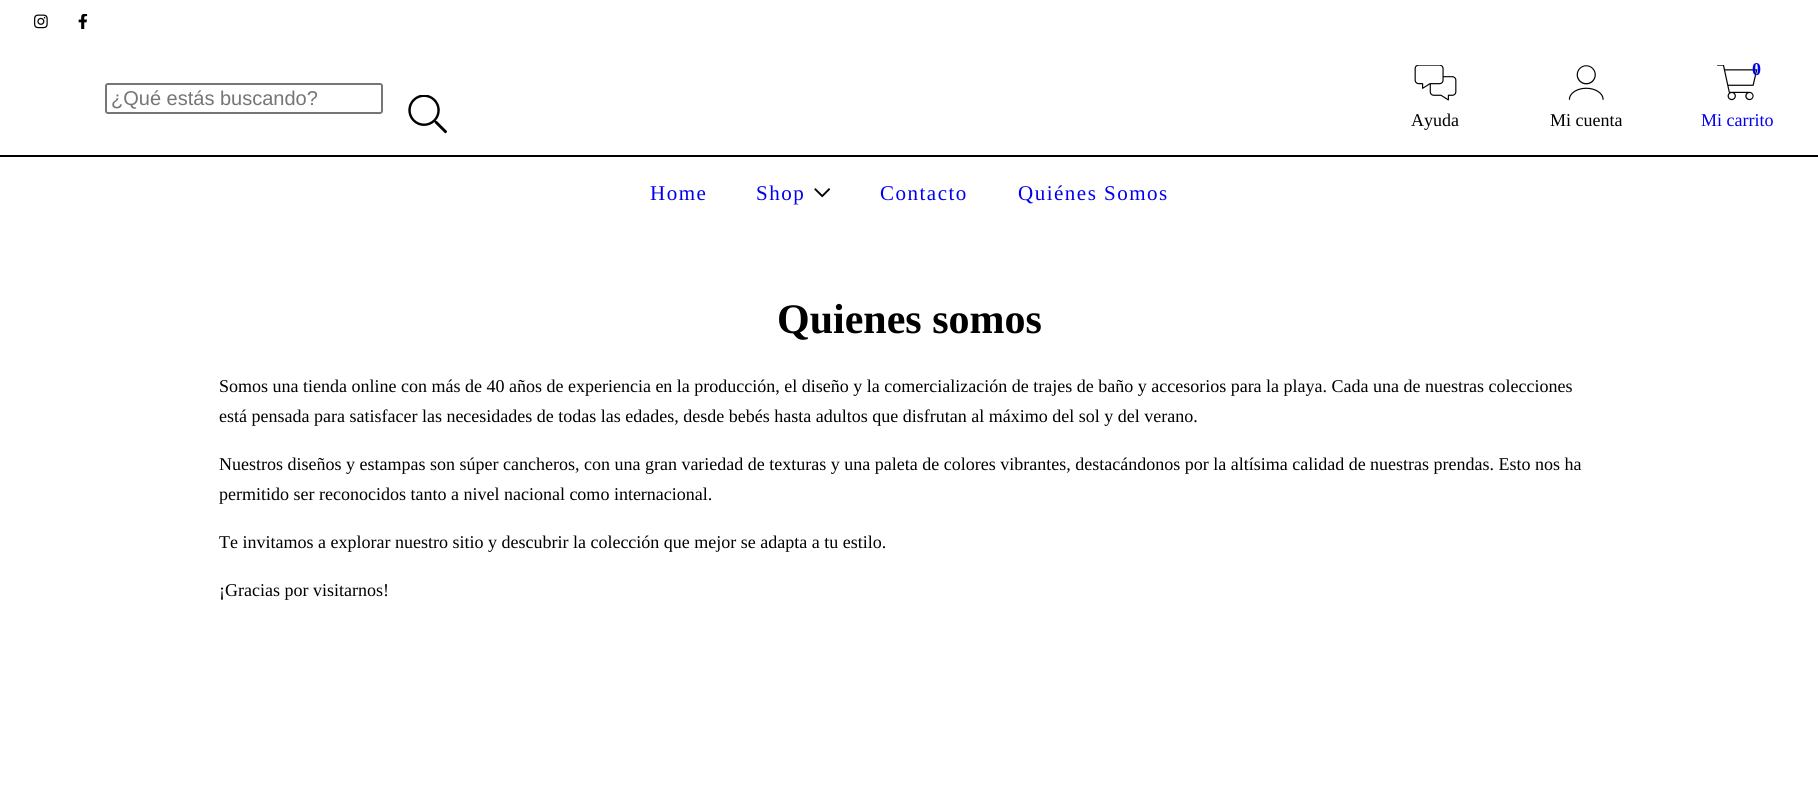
import math
import cairocffi as cairo

surface = cairo.ImageSurface(cairo.FORMAT_RGB24, 1818, 803)
ctx = cairo.Context(surface)
options = cairo.FontOptions()
options.set_hint_metrics(cairo.HINT_METRICS_OFF)
options.set_hint_style(cairo.HINT_STYLE_NONE)
ctx.set_font_options(options)
ctx.set_miter_limit(4)


def rgb(r, g, b):
    ctx.set_source_rgb(r / 255, g / 255, b / 255)


def face(family, size, italic, bold):
    ctx.select_font_face(family, cairo.FONT_SLANT_ITALIC if italic else cairo.FONT_SLANT_NORMAL, cairo.FONT_WEIGHT_BOLD if bold else cairo.FONT_WEIGHT_NORMAL)
    ctx.set_font_size(size)


def label(x, y, s):
    ctx.move_to(x, y)
    ctx.show_text(s)


def tracked(x, y, s, letter, word):
    ctx.move_to(x, y)
    for ch in s:
        ctx.show_text(ch)
        ctx.rel_move_to(letter + word * (ch == ' '), 0)


def rect(x, y, w, h):
    ctx.rectangle(x, y, w, h)
    ctx.fill()


def rrect(x, y, w, h, r):
    ctx.new_sub_path()
    for i, (u, v) in enumerate([(x + w - r, y + h - r), (x + r, y + h - r), (x + r, y + r), (x + w - r, y + r)]):
        ctx.arc(u, v, r, i * math.pi / 2, (i + 1) * math.pi / 2)
    ctx.close_path()


def image(path, x, y, w, h):
    ctx.save()
    ctx.set_source_surface(cairo.ImageSurface.create_from_png(path), x, y)
    ctx.rectangle(x, y, w, h)
    ctx.fill()
    ctx.restore()


rgb(255, 255, 255)
ctx.paint()
image('image0.png', 34, 14, 14, 15)
image('image1.png', 78, 14, 10, 15)
rrect(106, 84, 276, 29, 2)
rgb(118, 118, 118)
ctx.stroke()
face('Liberation Sans', 20, 0, 0)
rgb(117, 117, 117)
label(111, 105, '¿Qué estás buscando?')
image('image2.png', 408, 95, 39, 39)
image('image3.png', 1414, 65, 43, 36)
face('Liberation Serif', 18, 0, 0)
rgb(0, 0, 0)
label(1411, 126, 'Ayuda')
image('image4.png', 1568, 65, 36, 35)
label(1550, 126, 'Mi cuenta')
image('image5.png', 1716, 65, 42, 36)
face('Liberation Serif', 18, 0, 1)
rgb(0, 0, 238)
label(1752, 75, '0')
face('Liberation Serif', 18, 0, 0)
label(1701, 126, 'Mi carrito')
rgb(0, 0, 0)
rect(0, 155, 1818, 2)
face('Liberation Serif', 21, 0, 0)
rgb(0, 0, 238)
tracked(650, 200, 'Home', 1.5, 0)
tracked(756, 200, 'Shop', 1.5, 0)
image('image6.png', 814, 188, 17, 10)
tracked(880, 200, 'Contacto', 1.5, 0)
tracked(1018, 200, 'Quiénes Somos', 1.5, 0)
face('Liberation Serif', 42, 0, 1)
rgb(0, 0, 0)
label(777, 333, 'Quienes somos')
face('Liberation Serif', 18, 0, 0)
label(219, 392, 'Somos una tienda online con más de 40 años de experiencia en la producción, el diseño y la comercialización de trajes de baño y accesorios para la playa. Cada una de nuestras colecciones')
label(219, 422, 'está pensada para satisfacer las necesidades de todas las edades, desde bebés hasta adultos que disfrutan al máximo del sol y del verano.')
label(219, 470, 'Nuestros diseños y estampas son súper cancheros, con una gran variedad de texturas y una paleta de colores vibrantes, destacándonos por la altísima calidad de nuestras prendas. Esto nos ha')
label(219, 500, 'permitido ser reconocidos tanto a nivel nacional como internacional.')
label(219, 548, 'Te invitamos a explorar nuestro sitio y descubrir la colección que mejor se adapta a tu estilo.')
label(219, 596, '¡Gracias por visitarnos!')
surface.write_to_png('render.png')
